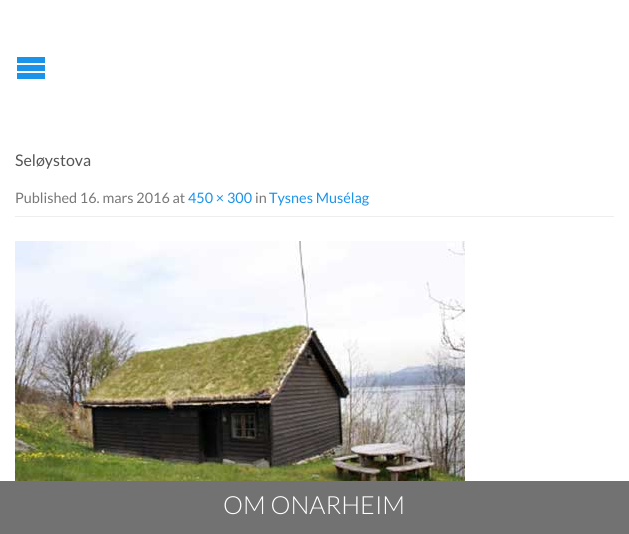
import math
import cairocffi as cairo

surface = cairo.ImageSurface(cairo.FORMAT_RGB24, 629, 534)
ctx = cairo.Context(surface)
options = cairo.FontOptions()
options.set_hint_metrics(cairo.HINT_METRICS_OFF)
options.set_hint_style(cairo.HINT_STYLE_NONE)
ctx.set_font_options(options)
ctx.set_miter_limit(4)


def rgb(r, g, b):
    ctx.set_source_rgb(r / 255, g / 255, b / 255)


def face(family, size, italic, bold):
    ctx.select_font_face(family, cairo.FONT_SLANT_ITALIC if italic else cairo.FONT_SLANT_NORMAL, cairo.FONT_WEIGHT_BOLD if bold else cairo.FONT_WEIGHT_NORMAL)
    ctx.set_font_size(size)


def label(x, y, s):
    ctx.move_to(x, y)
    ctx.show_text(s)


def rect(x, y, w, h):
    ctx.rectangle(x, y, w, h)
    ctx.fill()


def image(path, x, y, w, h):
    ctx.save()
    ctx.set_source_surface(cairo.ImageSurface.create_from_png(path), x, y)
    ctx.rectangle(x, y, w, h)
    ctx.fill()
    ctx.restore()


rgb(255, 255, 255)
ctx.paint()
image('image0.png', 17, 57, 28, 22)
rgb(238, 238, 238)
rect(15, 216, 599, 1)
face('Lato', 16, 0, 0)
rgb(85, 85, 85)
label(15, 166, 'Seløystova')
face('Lato', 14.4, 0, 0)
rgb(119, 119, 119)
label(15, 203, 'Published 16. mars 2016 at')
rgb(26, 147, 235)
label(188, 203, '450 × 300')
rgb(119, 119, 119)
label(255, 203, 'in')
rgb(26, 147, 235)
label(269, 203, 'Tysnes Musélag')
image('image1.png', 15, 241, 450, 240)
rgb(114, 114, 114)
rect(0, 481, 629, 53)
face('Lato Light', 25, 0, 0)
rgb(255, 255, 255)
label(223, 514, 'OM ONARHEIM')
surface.write_to_png('render.png')
